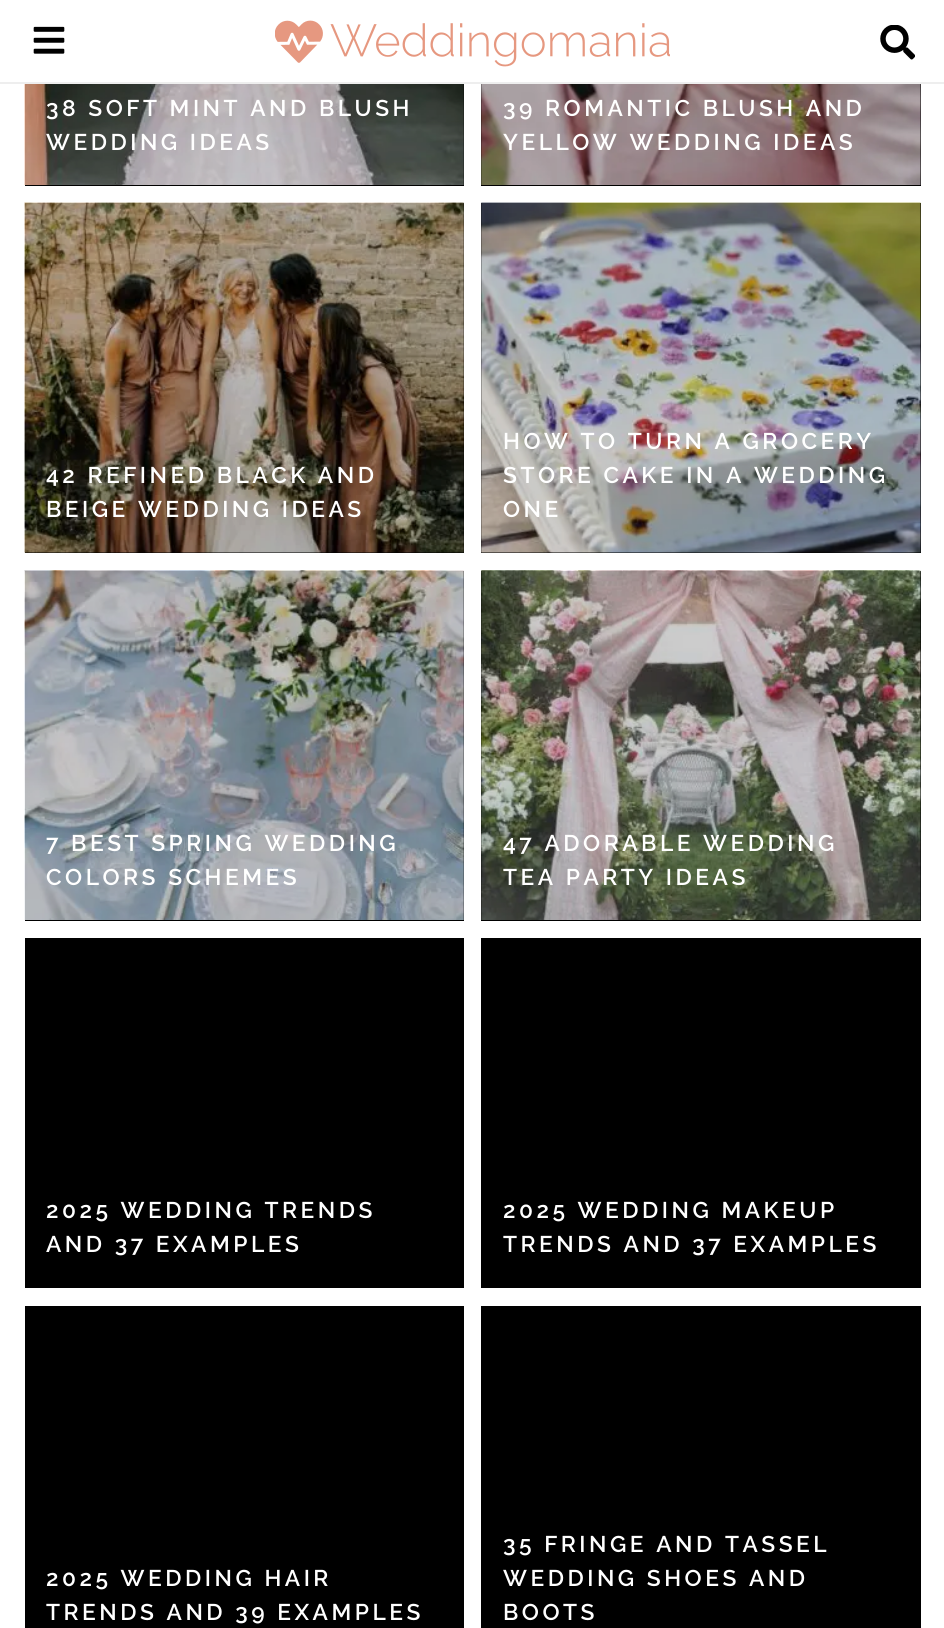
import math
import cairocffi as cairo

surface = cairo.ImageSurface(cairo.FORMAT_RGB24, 944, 1628)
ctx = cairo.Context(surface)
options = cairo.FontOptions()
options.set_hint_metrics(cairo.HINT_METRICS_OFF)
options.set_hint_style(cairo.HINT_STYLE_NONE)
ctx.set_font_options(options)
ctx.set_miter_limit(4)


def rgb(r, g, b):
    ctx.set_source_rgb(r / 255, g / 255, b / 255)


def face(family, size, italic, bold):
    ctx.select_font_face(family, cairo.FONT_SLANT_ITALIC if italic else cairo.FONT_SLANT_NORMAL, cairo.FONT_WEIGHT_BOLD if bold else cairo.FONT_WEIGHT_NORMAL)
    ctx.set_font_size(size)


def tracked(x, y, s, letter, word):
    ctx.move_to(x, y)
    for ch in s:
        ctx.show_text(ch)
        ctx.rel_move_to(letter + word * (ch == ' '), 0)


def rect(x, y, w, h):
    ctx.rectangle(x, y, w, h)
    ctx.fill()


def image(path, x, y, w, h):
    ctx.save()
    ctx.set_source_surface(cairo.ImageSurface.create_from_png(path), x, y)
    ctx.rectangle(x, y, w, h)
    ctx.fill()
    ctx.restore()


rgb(255, 255, 255)
ctx.paint()
rgb(238, 238, 238)
rect(0, 82, 944, 2)
image('image0.png', 33, 26, 32, 28)
image('image1.png', 275, 20, 395, 47)
image('image2.png', 880, 25, 35, 35)
rgb(0, 0, 0)
rect(25, 84, 439, 102)
image('image3.png', 24, 84, 440, 101)
face('Raleway Thin', 22.75, 0, 0)
rgb(255, 255, 255)
tracked(46, 116, '38 SOFT MINT AND BLUSH', 3.5, 0)
tracked(46, 150, 'WEDDING IDEAS', 3.5, 0)
rgb(0, 0, 0)
rect(481, 84, 440, 102)
image('image4.png', 481, 84, 440, 101)
rgb(255, 255, 255)
tracked(503, 116, '39 ROMANTIC BLUSH AND', 3.5, 0)
tracked(503, 150, 'YELLOW WEDDING IDEAS', 3.5, 0)
rgb(0, 0, 0)
rect(25, 203, 439, 350)
image('image5.png', 24, 202, 440, 351)
rgb(255, 255, 255)
tracked(46, 483, '42 REFINED BLACK AND', 3.5, 0)
tracked(46, 517, 'BEIGE WEDDING IDEAS', 3.5, 0)
rgb(0, 0, 0)
rect(481, 203, 440, 350)
image('image6.png', 481, 202, 440, 351)
rgb(255, 255, 255)
tracked(503, 449, 'HOW TO TURN A GROCERY', 3.5, 0)
tracked(503, 483, 'STORE CAKE IN A WEDDING', 3.5, 0)
tracked(503, 517, 'ONE', 3.5, 0)
rgb(0, 0, 0)
rect(25, 571, 439, 350)
image('image7.png', 24, 570, 440, 350)
rgb(255, 255, 255)
tracked(46, 851, '7 BEST SPRING WEDDING', 3.5, 0)
tracked(46, 885, 'COLORS SCHEMES', 3.5, 0)
rgb(0, 0, 0)
rect(481, 571, 440, 350)
image('image8.png', 481, 570, 440, 350)
rgb(255, 255, 255)
tracked(503, 851, '47 ADORABLE WEDDING', 3.5, 0)
tracked(503, 885, 'TEA PARTY IDEAS', 3.5, 0)
rgb(0, 0, 0)
rect(25, 938, 439, 350)
rgb(255, 255, 255)
tracked(46, 1218, '2025 WEDDING TRENDS', 3.5, 0)
tracked(46, 1252, 'AND 37 EXAMPLES', 3.5, 0)
rgb(0, 0, 0)
rect(481, 938, 440, 350)
rgb(255, 255, 255)
tracked(503, 1218, '2025 WEDDING MAKEUP', 3.5, 0)
tracked(503, 1252, 'TRENDS AND 37 EXAMPLES', 3.5, 0)
rgb(0, 0, 0)
rect(25, 1306, 439, 322)
rgb(255, 255, 255)
tracked(46, 1586, '2025 WEDDING HAIR', 3.5, 0)
tracked(46, 1620, 'TRENDS AND 39 EXAMPLES', 3.5, 0)
rgb(0, 0, 0)
rect(481, 1306, 440, 322)
rgb(255, 255, 255)
tracked(503, 1552, '35 FRINGE AND TASSEL', 3.5, 0)
tracked(503, 1586, 'WEDDING SHOES AND', 3.5, 0)
tracked(503, 1620, 'BOOTS', 3.5, 0)
surface.write_to_png('render.png')
